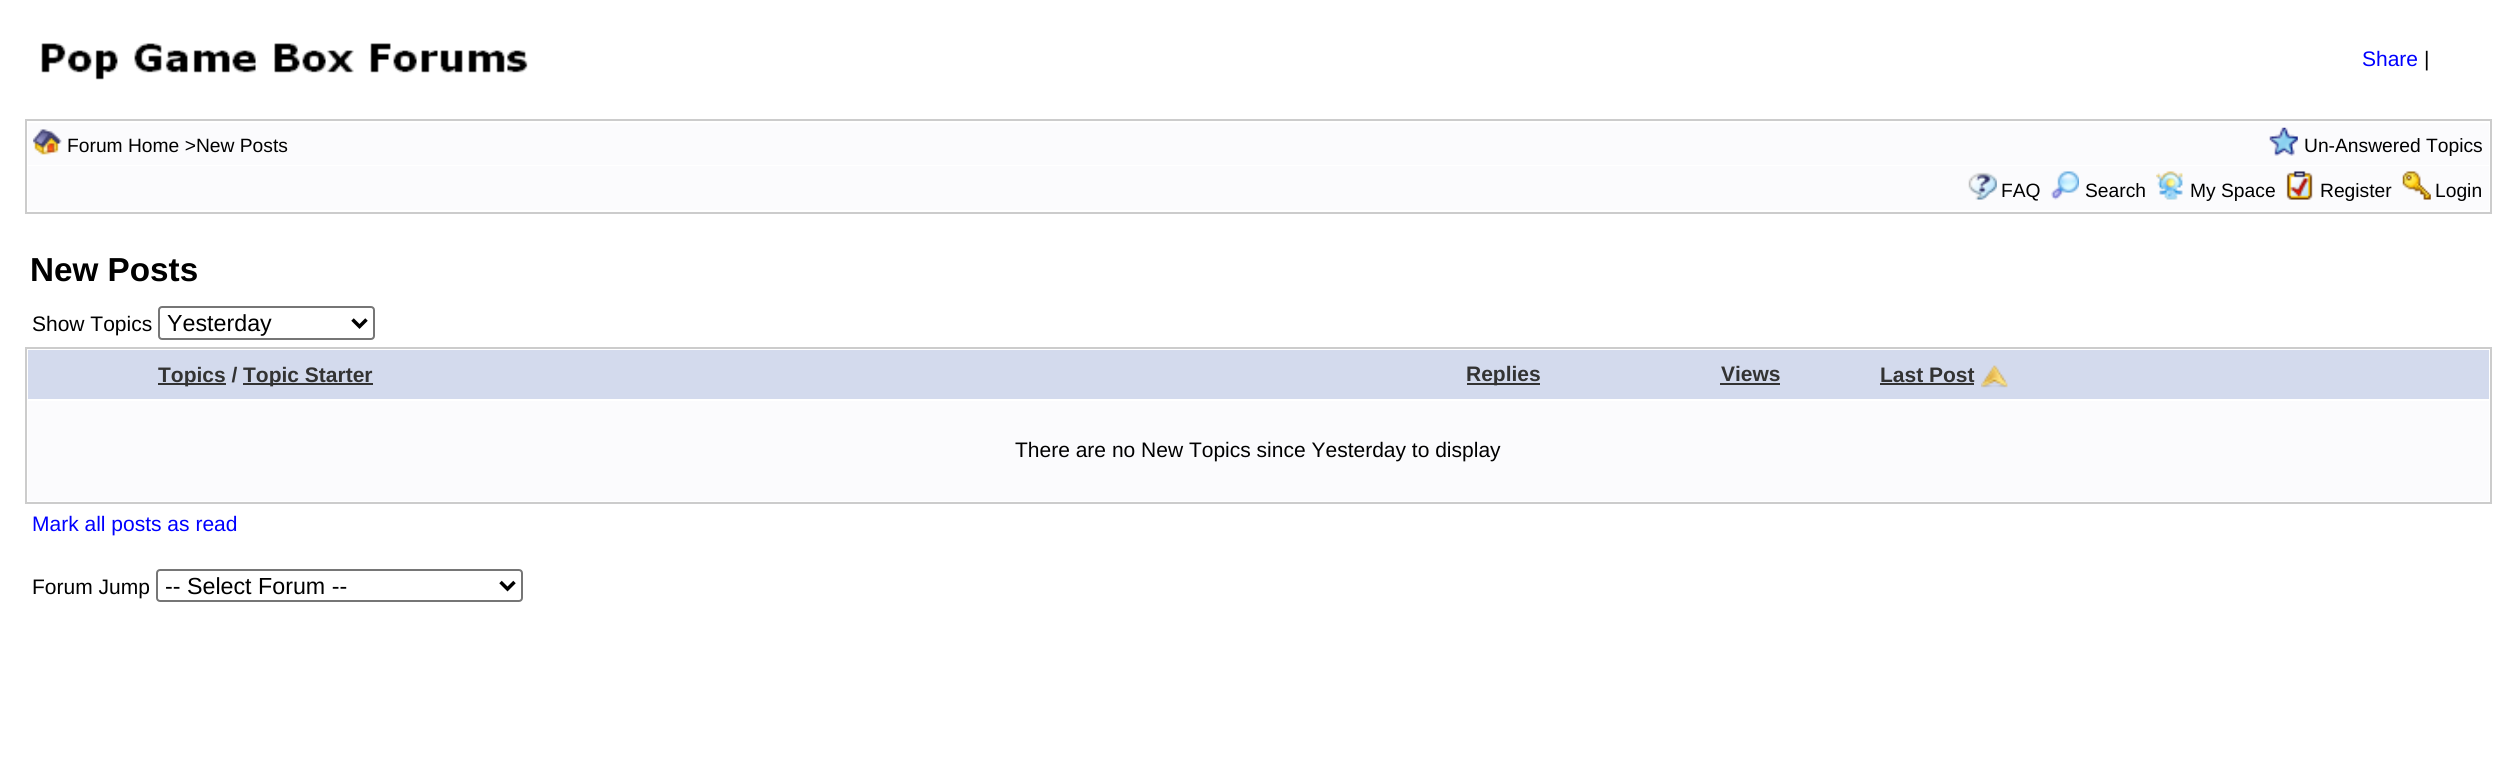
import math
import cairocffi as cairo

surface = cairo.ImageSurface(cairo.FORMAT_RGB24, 2516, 762)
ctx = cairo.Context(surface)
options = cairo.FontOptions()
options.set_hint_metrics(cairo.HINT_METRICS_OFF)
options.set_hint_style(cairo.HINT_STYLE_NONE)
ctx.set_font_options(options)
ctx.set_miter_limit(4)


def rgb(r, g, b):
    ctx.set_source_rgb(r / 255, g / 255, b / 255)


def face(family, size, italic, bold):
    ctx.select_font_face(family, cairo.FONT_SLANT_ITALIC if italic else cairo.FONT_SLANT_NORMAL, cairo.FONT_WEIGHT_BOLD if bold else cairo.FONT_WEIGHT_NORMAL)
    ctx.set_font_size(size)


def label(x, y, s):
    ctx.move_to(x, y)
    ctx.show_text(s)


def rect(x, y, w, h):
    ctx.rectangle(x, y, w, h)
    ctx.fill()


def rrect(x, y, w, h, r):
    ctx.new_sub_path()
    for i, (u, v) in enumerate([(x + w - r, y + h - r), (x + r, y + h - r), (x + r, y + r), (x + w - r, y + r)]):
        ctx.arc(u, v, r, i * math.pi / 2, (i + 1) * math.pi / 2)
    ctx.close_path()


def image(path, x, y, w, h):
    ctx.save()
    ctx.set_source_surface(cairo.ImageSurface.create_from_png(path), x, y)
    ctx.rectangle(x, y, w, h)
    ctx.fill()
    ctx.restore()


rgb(255, 255, 255)
ctx.paint()
image('image0.png', 41, 43, 487, 37)
face('Liberation Sans', 21, 0, 0)
rgb(0, 0, 255)
label(2362, 66, 'Share')
rgb(0, 0, 0)
label(2424, 66, '|')
ctx.rectangle(26, 120, 2465, 93)
rgb(204, 204, 204)
ctx.stroke()
rgb(251, 251, 253)
rect(28, 123, 2461, 42)
image('image1.png', 33, 129, 29, 26)
face('Liberation Sans', 19.25, 0, 0)
rgb(0, 0, 0)
label(67, 152, 'Forum Home >New Posts')
image('image2.png', 2269, 127, 29, 29)
label(2304, 152, 'Un-Answered Topics')
rgb(251, 251, 253)
rect(28, 166, 2461, 44)
image('image3.png', 1968, 172, 29, 28)
rgb(0, 0, 0)
label(2001, 197, 'FAQ')
image('image4.png', 2051, 171, 28, 29)
label(2085, 197, 'Search')
image('image5.png', 2156, 171, 27, 29)
label(2190, 197, 'My Space')
image('image6.png', 2286, 171, 27, 29)
label(2320, 197, 'Register')
image('image7.png', 2402, 171, 29, 29)
label(2435, 197, 'Login')
face('Liberation Sans', 33.25, 0, 1)
label(30, 281, 'New Posts')
face('Liberation Sans', 21, 0, 0)
label(32, 331, 'Show Topics')
rrect(159, 307, 215, 32, 3)
rgb(118, 118, 118)
ctx.stroke()
ctx.new_path()
ctx.move_to(352.5, 319.5)
ctx.line_to(359.5, 326.5)
ctx.line_to(366.5, 319.5)
rgb(0, 0, 0)
ctx.set_line_width(3.5)
ctx.stroke()
face('Liberation Sans', 23.25, 0, 0)
label(167, 331, 'Yesterday')
ctx.rectangle(26, 348, 2465, 155)
rgb(204, 204, 204)
ctx.set_line_width(2)
ctx.stroke()
rgb(211, 218, 237)
rect(28, 350, 2461, 49)
rgb(51, 51, 51)
rect(158, 383, 68, 2)
face('Liberation Sans', 21, 0, 1)
label(158, 382, 'Topics /')
rect(243, 383, 130, 2)
label(243, 382, 'Topic Starter')
rect(1467, 383, 73, 2)
label(1466, 381, 'Replies')
label(1721, 381, 'Views')
rect(1720, 383, 60, 2)
label(1880, 382, 'Last Post')
rect(1880, 383, 94, 2)
image('image8.png', 1981, 365, 27, 23)
rgb(251, 251, 253)
rect(28, 401, 2461, 100)
face('Liberation Sans', 21, 0, 0)
rgb(0, 0, 0)
label(1015, 457, 'There are no New Topics since Yesterday to display')
rgb(0, 0, 255)
label(32, 531, 'Mark all posts as read')
rgb(0, 0, 0)
label(32, 594, 'Forum Jump')
rrect(157, 570, 365, 31, 3)
rgb(118, 118, 118)
ctx.stroke()
ctx.new_path()
ctx.move_to(500.5, 582)
ctx.line_to(507.5, 589)
ctx.line_to(514.5, 582)
rgb(0, 0, 0)
ctx.set_line_width(3.5)
ctx.stroke()
face('Liberation Sans', 23.25, 0, 0)
label(165, 594, '-- Select Forum --')
surface.write_to_png('render.png')
